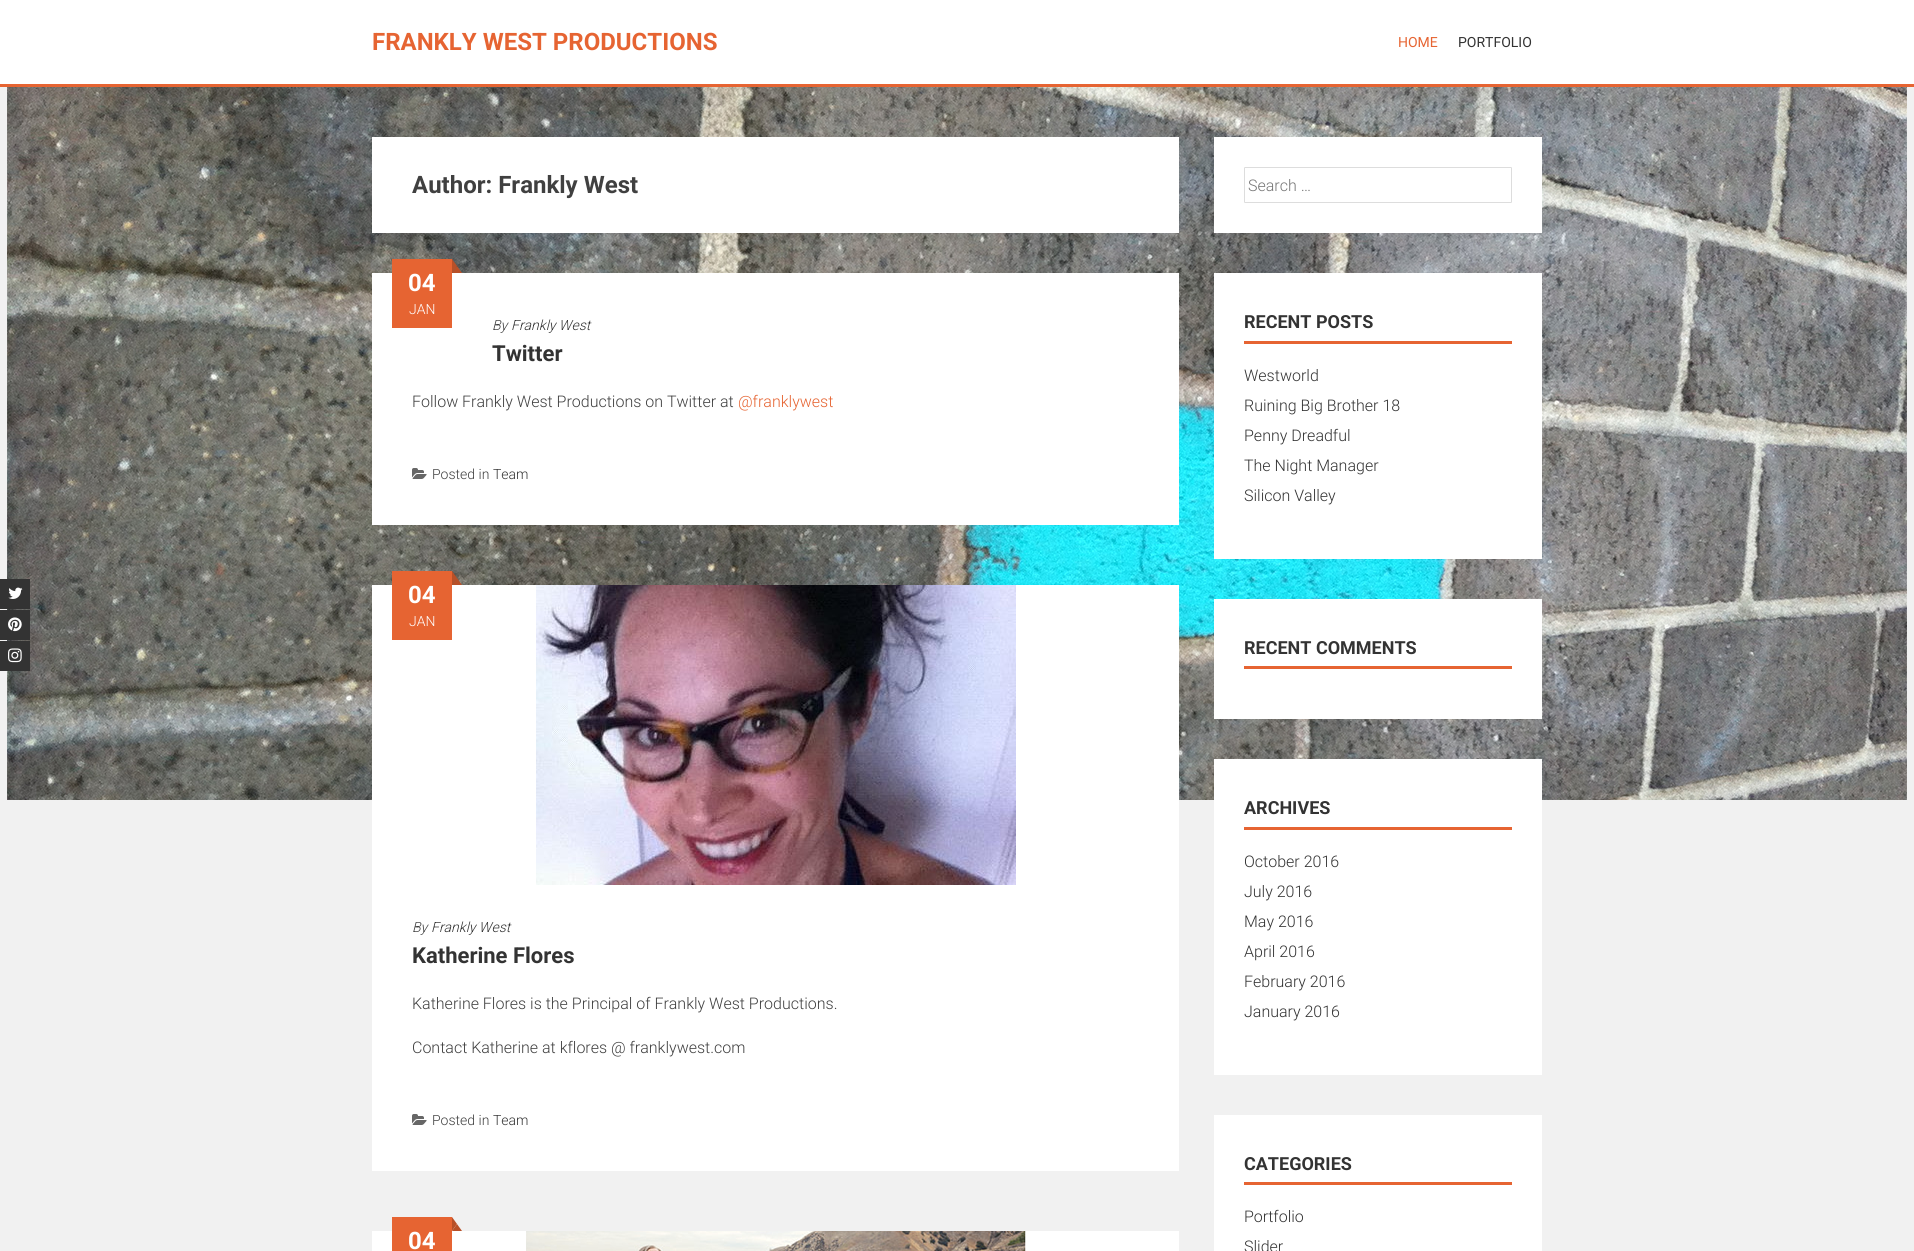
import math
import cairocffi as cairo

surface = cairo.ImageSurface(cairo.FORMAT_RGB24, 1914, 1251)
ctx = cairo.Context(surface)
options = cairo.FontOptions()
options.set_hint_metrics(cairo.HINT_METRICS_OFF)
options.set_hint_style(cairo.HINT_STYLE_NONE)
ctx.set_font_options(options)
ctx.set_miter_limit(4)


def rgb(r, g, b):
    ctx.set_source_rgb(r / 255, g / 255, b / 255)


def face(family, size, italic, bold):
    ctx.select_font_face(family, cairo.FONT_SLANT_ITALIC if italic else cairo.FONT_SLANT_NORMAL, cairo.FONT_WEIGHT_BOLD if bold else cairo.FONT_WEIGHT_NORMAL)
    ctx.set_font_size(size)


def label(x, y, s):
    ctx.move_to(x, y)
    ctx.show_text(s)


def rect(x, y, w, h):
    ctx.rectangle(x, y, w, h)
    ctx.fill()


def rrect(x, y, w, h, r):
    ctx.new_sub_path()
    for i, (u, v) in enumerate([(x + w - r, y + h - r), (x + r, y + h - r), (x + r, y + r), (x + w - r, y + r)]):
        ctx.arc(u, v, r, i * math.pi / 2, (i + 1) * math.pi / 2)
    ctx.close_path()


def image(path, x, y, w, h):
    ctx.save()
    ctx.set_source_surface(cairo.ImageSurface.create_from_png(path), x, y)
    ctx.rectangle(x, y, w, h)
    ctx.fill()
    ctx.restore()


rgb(241, 241, 241)
ctx.paint()
image('image0.png', 7, 87, 1900, 713)
rgb(255, 255, 255)
rect(0, 0, 1914, 84)
rgb(230, 100, 50)
rect(0, 84, 1914, 3)
face('Roboto', 24, 0, 1)
label(372, 50, 'FRANKLY WEST PRODUCTIONS')
face('Roboto', 14, 0, 0)
label(1398, 47, 'HOME')
rgb(51, 51, 51)
label(1458, 47, 'PORTFOLIO')
rect(0, 579, 30, 30)
image('image1.png', 8, 587, 15, 12)
rect(0, 610, 30, 30)
image('image2.png', 8, 617, 14, 15)
rect(0, 641, 30, 30)
image('image3.png', 8, 648, 14, 15)
rgb(255, 255, 255)
rect(372, 137, 807, 96)
face('Roboto', 24, 0, 1)
rgb(64, 64, 64)
label(412, 193, 'Author: Frankly West')
rgb(255, 255, 255)
rect(372, 273, 807, 252)
rgb(230, 100, 50)
rect(392, 259, 60, 69)
rgb(184, 80, 40)
ctx.new_path()
ctx.move_to(462, 273)
ctx.line_to(452, 273)
ctx.line_to(457, 266)
ctx.close_path()
ctx.fill()
ctx.new_path()
ctx.move_to(452, 273)
ctx.line_to(452, 259)
ctx.line_to(457, 266)
ctx.close_path()
ctx.fill()
rgb(255, 255, 255)
label(408, 291, '04')
face('Roboto Light', 14, 0, 0)
label(409, 314, 'JAN')
face('Roboto Light', 14, 1, 0)
rgb(64, 64, 64)
label(492, 330, 'By')
rgb(51, 51, 51)
label(511, 330, 'Frankly West')
face('Roboto', 22, 0, 1)
label(492, 361, 'Twitter')
face('Roboto Light', 16, 0, 0)
rgb(64, 64, 64)
label(412, 407, 'Follow Frankly West Productions on Twitter at')
rgb(230, 100, 50)
label(738, 407, '@franklywest')
image('image4.png', 412, 468, 15, 11)
face('Roboto Light', 14, 0, 0)
rgb(64, 64, 64)
label(432, 479, 'Posted in')
rgb(51, 51, 51)
label(493, 479, 'Team')
rgb(255, 255, 255)
rect(372, 585, 807, 586)
rgb(230, 100, 50)
rect(392, 571, 60, 69)
rgb(184, 80, 40)
ctx.new_path()
ctx.move_to(462, 585)
ctx.line_to(452, 585)
ctx.line_to(457, 578)
ctx.close_path()
ctx.fill()
ctx.new_path()
ctx.move_to(452, 585)
ctx.line_to(452, 571)
ctx.line_to(457, 578)
ctx.close_path()
ctx.fill()
face('Roboto', 24, 0, 1)
rgb(255, 255, 255)
label(408, 603, '04')
face('Roboto Light', 14, 0, 0)
label(409, 626, 'JAN')
face('Roboto Light', 14, 1, 0)
rgb(64, 64, 64)
label(412, 932, 'By')
rgb(51, 51, 51)
label(431, 932, 'Frankly West')
face('Roboto', 22, 0, 1)
label(412, 963, 'Katherine Flores')
image('image5.png', 536, 585, 480, 300)
face('Roboto Light', 16, 0, 0)
rgb(64, 64, 64)
label(412, 1009, 'Katherine Flores is the Principal of Frankly West Productions.')
label(412, 1053, 'Contact Katherine at kflores @ franklywest.com')
image('image4.png', 412, 1114, 15, 11)
face('Roboto Light', 14, 0, 0)
label(432, 1125, 'Posted in')
rgb(51, 51, 51)
label(493, 1125, 'Team')
rgb(255, 255, 255)
rect(372, 1231, 807, 20)
rgb(230, 100, 50)
rect(392, 1217, 60, 34)
rgb(184, 80, 40)
ctx.new_path()
ctx.move_to(462, 1231)
ctx.line_to(452, 1231)
ctx.line_to(457, 1224)
ctx.close_path()
ctx.fill()
ctx.new_path()
ctx.move_to(452, 1231)
ctx.line_to(452, 1217)
ctx.line_to(457, 1224)
ctx.close_path()
ctx.fill()
face('Roboto', 24, 0, 1)
rgb(255, 255, 255)
label(408, 1249, '04')
image('image6.png', 526, 1231, 500, 20)
rect(1214, 137, 328, 96)
rrect(1244.5, 167.5, 267, 35, 0.5)
rgb(221, 221, 221)
ctx.set_line_width(1)
ctx.stroke()
face('Roboto Light', 16, 0, 0)
rgb(117, 117, 117)
label(1248, 191, 'Search …')
rgb(255, 255, 255)
rect(1214, 273, 328, 286)
rgb(230, 100, 50)
rect(1244, 341, 268, 3)
face('Roboto', 18, 0, 1)
rgb(51, 51, 51)
label(1244, 328, 'RECENT POSTS')
face('Roboto Light', 16, 0, 0)
label(1244, 381, 'Westworld')
label(1244, 411, 'Ruining Big Brother 18')
label(1244, 441, 'Penny Dreadful')
label(1244, 471, 'The Night Manager')
label(1244, 501, 'Silicon Valley')
rgb(255, 255, 255)
rect(1214, 599, 328, 120)
rgb(230, 100, 50)
rect(1244, 666, 268, 3)
face('Roboto', 18, 0, 1)
rgb(51, 51, 51)
label(1244, 654, 'RECENT COMMENTS')
rgb(255, 255, 255)
rect(1214, 759, 328, 316)
rgb(230, 100, 50)
rect(1244, 827, 268, 3)
rgb(51, 51, 51)
label(1244, 814, 'ARCHIVES')
face('Roboto Light', 16, 0, 0)
label(1244, 867, 'October 2016')
label(1244, 897, 'July 2016')
label(1244, 927, 'May 2016')
label(1244, 957, 'April 2016')
label(1244, 987, 'February 2016')
label(1244, 1017, 'January 2016')
rgb(255, 255, 255)
rect(1214, 1115, 328, 136)
rgb(230, 100, 50)
rect(1244, 1182, 268, 3)
face('Roboto', 18, 0, 1)
rgb(51, 51, 51)
label(1244, 1170, 'CATEGORIES')
face('Roboto Light', 16, 0, 0)
label(1244, 1222, 'Portfolio')
label(1244, 1252, 'Slider')
surface.write_to_png('render.png')
